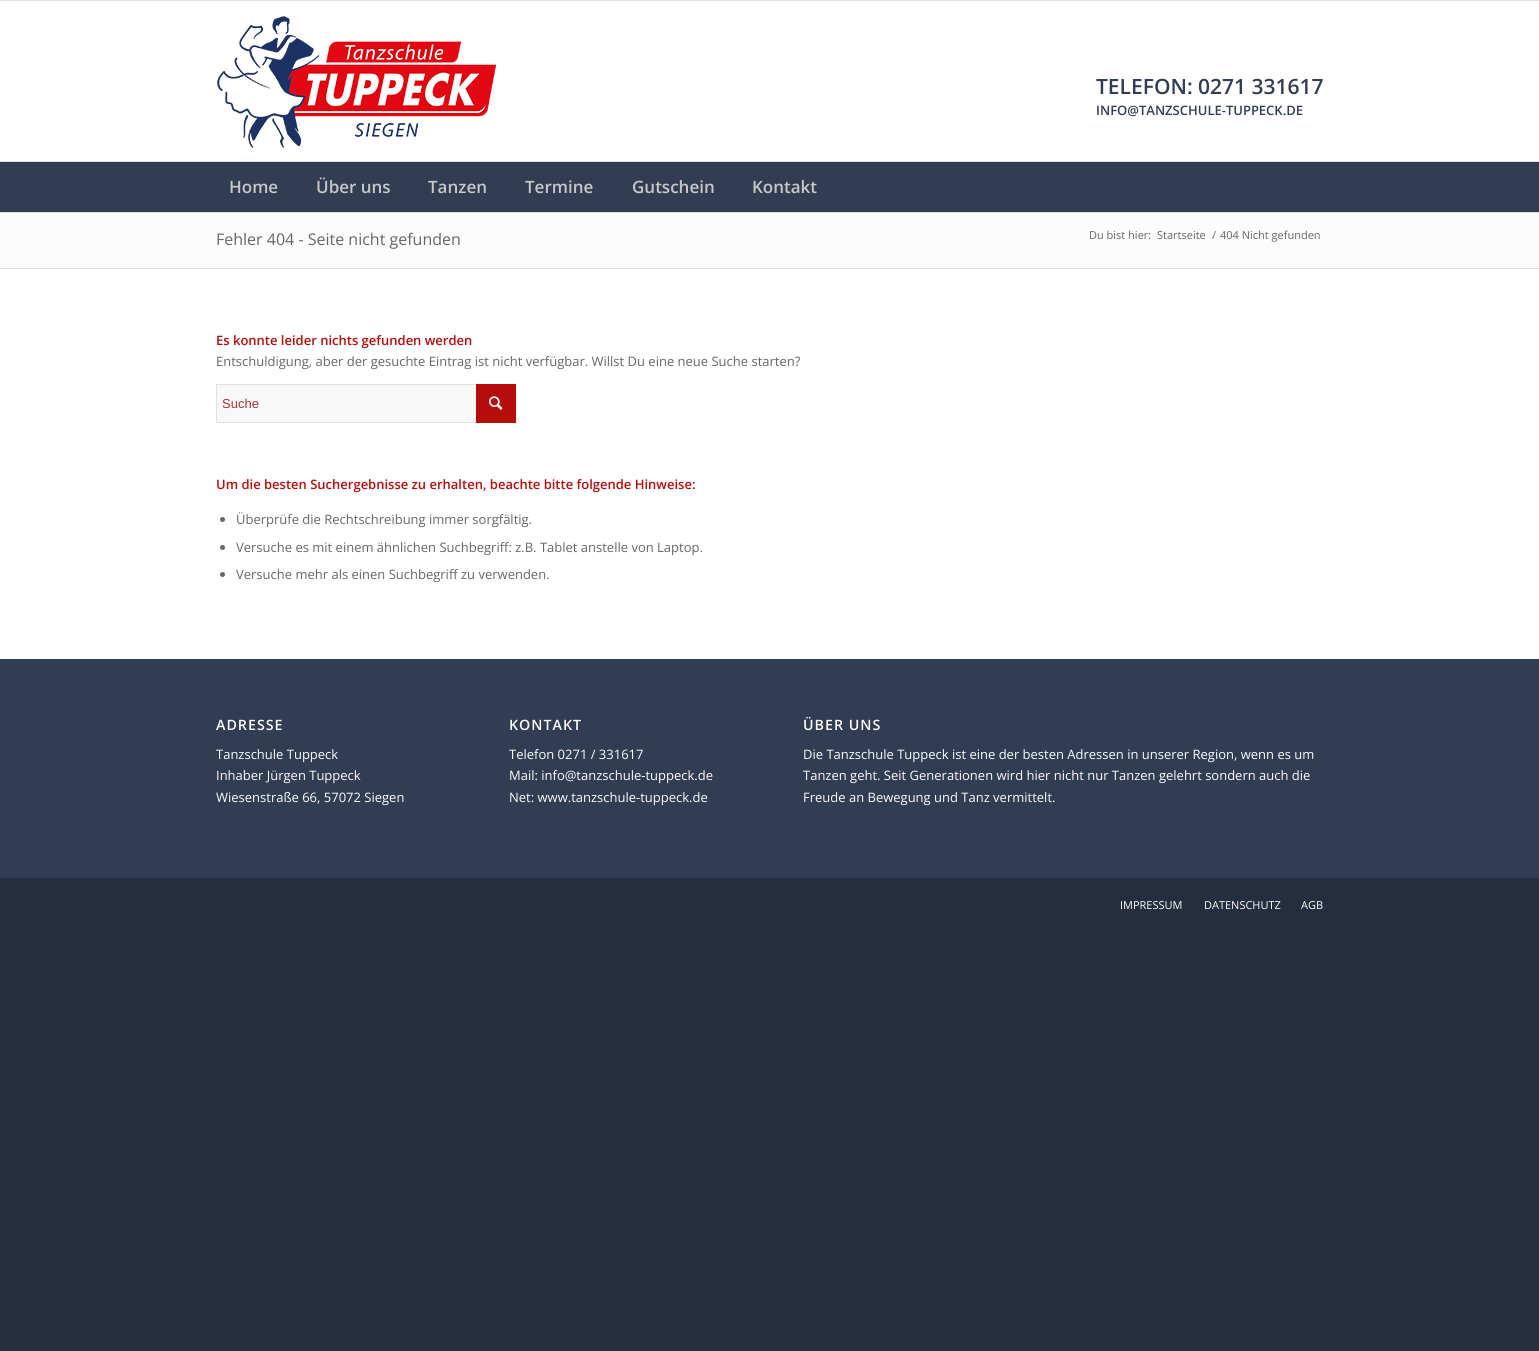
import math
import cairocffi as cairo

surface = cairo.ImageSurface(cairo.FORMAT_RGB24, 1539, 1351)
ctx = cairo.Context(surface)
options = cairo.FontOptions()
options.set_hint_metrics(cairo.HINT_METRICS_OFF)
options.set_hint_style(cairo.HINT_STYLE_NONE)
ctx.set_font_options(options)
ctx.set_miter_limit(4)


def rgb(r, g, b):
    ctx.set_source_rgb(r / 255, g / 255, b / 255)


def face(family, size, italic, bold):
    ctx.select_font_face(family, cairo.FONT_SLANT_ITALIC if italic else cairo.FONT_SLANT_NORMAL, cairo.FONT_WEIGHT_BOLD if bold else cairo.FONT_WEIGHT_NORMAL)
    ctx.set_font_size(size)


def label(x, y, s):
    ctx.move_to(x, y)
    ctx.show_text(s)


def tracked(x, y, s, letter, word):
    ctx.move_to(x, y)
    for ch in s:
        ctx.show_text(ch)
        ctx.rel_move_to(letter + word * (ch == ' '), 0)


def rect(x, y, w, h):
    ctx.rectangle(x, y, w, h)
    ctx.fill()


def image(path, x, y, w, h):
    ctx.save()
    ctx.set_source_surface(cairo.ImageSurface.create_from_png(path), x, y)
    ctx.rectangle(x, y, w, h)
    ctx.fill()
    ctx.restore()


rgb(37, 46, 63)
ctx.paint()
rgb(225, 225, 225)
rect(0, 0, 1539, 1)
rect(0, 212, 1539, 1)
rgb(255, 255, 255)
rect(0, 1, 1539, 160)
image('image0.png', 217, 16, 279, 132)
face('Open Sans SemiBold', 21, 0, 0)
rgb(49, 61, 83)
label(1096, 94, 'TELEFON: 0271 331617')
face('Open Sans SemiBold', 13, 0, 0)
label(1096, 115, 'INFO@TANZSCHULE-TUPPECK.DE')
rect(0, 162, 1539, 50)
rgb(225, 225, 225)
rect(0, 161, 1539, 1)
face('Open Sans SemiBold', 17, 0, 0)
rgb(201, 200, 200)
label(229, 193, 'Home')
label(316, 193, 'Über uns')
label(428, 193, 'Tanzen')
label(525, 193, 'Termine')
label(632, 193, 'Gutschein')
label(752, 193, 'Kontakt')
rgb(255, 255, 255)
rect(0, 269, 1539, 390)
rgb(252, 252, 252)
rect(0, 213, 1539, 55)
face('Open Sans', 16, 0, 0)
rgb(102, 102, 102)
label(216, 245, 'Fehler 404 - Seite nicht gefunden')
face('Open Sans', 11, 0, 0)
label(1089, 239, 'Du bist hier:')
label(1157, 239, 'Startseite')
label(1212, 239, '/')
label(1220, 239, '404 Nicht gefunden')
rgb(225, 225, 225)
rect(0, 268, 1539, 1)
face('Open Sans SemiBold', 13, 0, 0)
rgb(181, 13, 11)
label(216, 345, 'Es konnte leider nichts gefunden werden')
face('Open Sans', 13, 0, 0)
rgb(102, 102, 102)
label(216, 366, 'Entschuldigung, aber der gesuchte Eintrag ist nicht verfügbar. Willst Du eine neue Suche starten?')
rgb(248, 248, 248)
rect(217, 385, 259, 37)
ctx.rectangle(216.5, 384.5, 299, 38)
rgb(225, 225, 225)
ctx.set_line_width(1)
ctx.stroke()
face('Liberation Sans', 13, 0, 0)
rgb(165, 52, 54)
label(222, 408, 'Suche')
rgb(181, 13, 11)
rect(476, 384, 40, 39)
image('image1.png', 489, 396, 14, 14)
face('Open Sans SemiBold', 13, 0, 0)
label(216, 489, 'Um die besten Suchergebnisse zu erhalten, beachte bitte folgende Hinweise:')
rgb(102, 102, 102)
ctx.new_path()
ctx.arc(222.5, 519.5, 2.5, 0, 2 * math.pi)
ctx.fill()
face('Open Sans', 13, 0, 0)
label(236, 524, 'Überprüfe die Rechtschreibung immer sorgfältig.')
ctx.new_path()
ctx.arc(222.5, 547.5, 2.5, 0, 2 * math.pi)
ctx.fill()
label(236, 552, 'Versuche es mit einem ähnlichen Suchbegriff: z.B. Tablet anstelle von Laptop.')
ctx.new_path()
ctx.arc(222.5, 574.5, 2.5, 0, 2 * math.pi)
ctx.fill()
label(236, 579, 'Versuche mehr als einen Suchbegriff zu verwenden.')
rgb(49, 61, 83)
rect(0, 659, 1539, 219)
face('Open Sans SemiBold', 14.25, 0, 0)
rgb(253, 251, 251)
tracked(216, 730, 'ADRESSE', 1, 0)
face('Open Sans', 13, 0, 0)
label(216, 759, 'Tanzschule Tuppeck')
label(216, 780, 'Inhaber Jürgen Tuppeck')
label(216, 802, 'Wiesenstraße 66, 57072 Siegen')
face('Open Sans SemiBold', 14.25, 0, 0)
tracked(509, 730, 'KONTAKT', 1, 0)
face('Open Sans', 13, 0, 0)
label(509, 759, 'Telefon 0271 / 331617')
label(509, 780, 'Mail: info@tanzschule-tuppeck.de')
label(509, 802, 'Net: www.tanzschule-tuppeck.de')
face('Open Sans SemiBold', 14.25, 0, 0)
tracked(803, 730, 'ÜBER UNS', 1, 0)
face('Open Sans', 13, 0, 0)
label(803, 759, 'Die Tanzschule Tuppeck ist eine der besten Adressen in unserer Region, wenn es um')
label(803, 780, 'Tanzen geht. Seit Generationen wird hier nicht nur Tanzen gelehrt sondern auch die')
label(803, 802, 'Freude an Bewegung und Tanz vermittelt.')
face('Open Sans', 11, 0, 0)
label(1120, 909, 'IMPRESSUM')
label(1204, 909, 'DATENSCHUTZ')
label(1301, 909, 'AGB')
surface.write_to_png('render.png')
